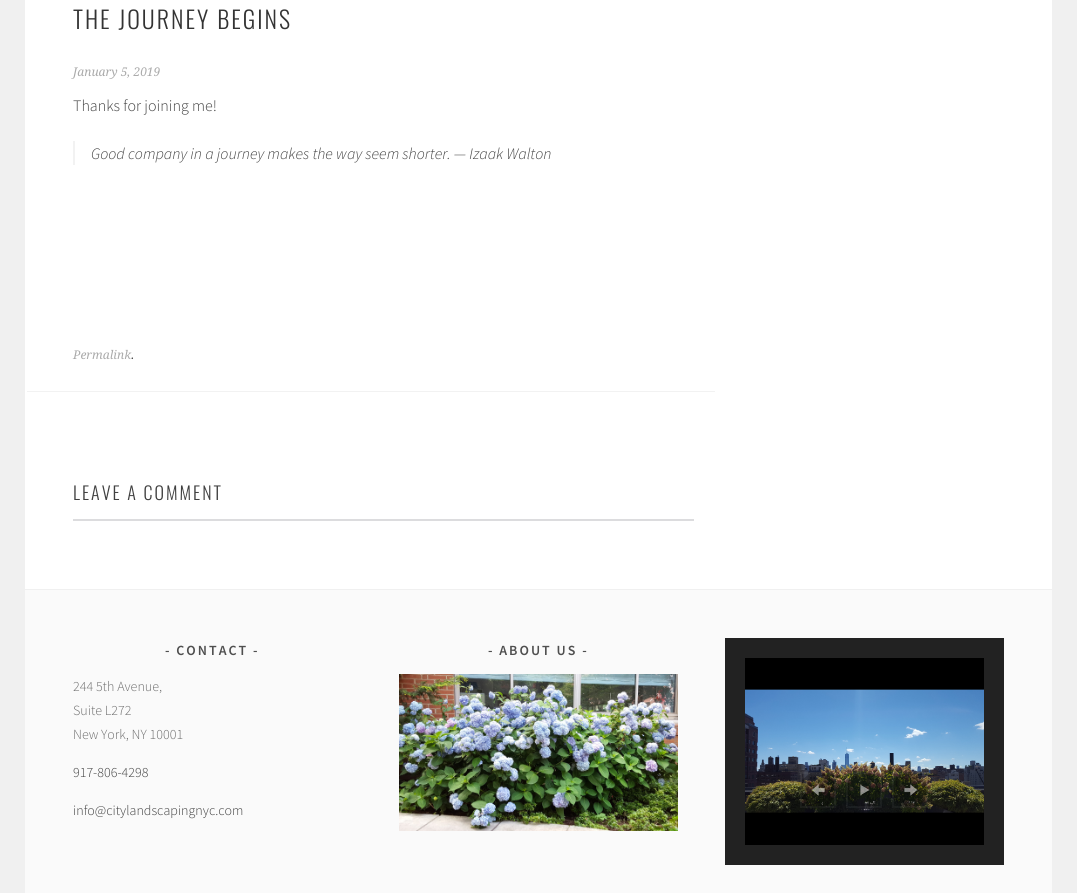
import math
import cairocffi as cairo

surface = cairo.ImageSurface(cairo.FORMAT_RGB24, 1077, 893)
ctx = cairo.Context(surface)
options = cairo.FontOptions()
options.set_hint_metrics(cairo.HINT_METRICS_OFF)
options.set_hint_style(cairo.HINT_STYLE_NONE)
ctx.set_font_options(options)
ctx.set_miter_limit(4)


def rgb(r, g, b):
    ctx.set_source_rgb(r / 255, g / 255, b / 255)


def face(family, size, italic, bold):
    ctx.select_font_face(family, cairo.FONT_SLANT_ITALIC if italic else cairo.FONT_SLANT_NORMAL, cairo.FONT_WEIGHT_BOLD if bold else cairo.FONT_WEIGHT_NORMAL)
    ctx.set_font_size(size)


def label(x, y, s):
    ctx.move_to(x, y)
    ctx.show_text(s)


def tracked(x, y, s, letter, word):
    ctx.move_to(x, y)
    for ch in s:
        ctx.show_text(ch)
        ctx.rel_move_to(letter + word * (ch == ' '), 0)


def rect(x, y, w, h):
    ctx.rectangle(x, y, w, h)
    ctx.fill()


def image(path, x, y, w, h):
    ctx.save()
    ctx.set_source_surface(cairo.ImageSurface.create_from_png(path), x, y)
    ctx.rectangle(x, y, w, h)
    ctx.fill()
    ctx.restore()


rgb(240, 240, 240)
ctx.paint()
rgb(255, 255, 255)
rect(25, 0, 1027, 589)
face('Oswald Light', 24, 0, 0)
rgb(51, 51, 51)
tracked(73, 29, 'THE JOURNEY BEGINS', 2, 0)
face('Droid Serif', 12, 1, 0)
rgb(170, 170, 170)
label(73, 76, 'January 5, 2019')
face('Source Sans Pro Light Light', 16, 0, 0)
rgb(64, 64, 64)
label(73, 111, 'Thanks for joining me!')
rgb(242, 242, 242)
rect(73, 141, 2, 24)
face('Source Sans Pro Light Light', 16, 1, 0)
rgb(64, 64, 64)
label(91, 159, 'Good company in a journey makes the way seem shorter. — Izaak Walton')
face('Droid Serif', 12, 1, 0)
rgb(170, 170, 170)
label(73, 359, 'Permalink')
rgb(64, 64, 64)
label(131, 359, '.')
rgb(242, 242, 242)
rect(27, 391, 688, 1)
face('Oswald Light', 18, 0, 0)
rgb(64, 64, 64)
tracked(73, 500, 'LEAVE A COMMENT', 2, 0)
rgb(220, 220, 222)
rect(73, 519, 621, 2)
rgb(250, 250, 250)
rect(25, 590, 1027, 303)
face('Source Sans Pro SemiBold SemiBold', 14, 0, 0)
rgb(79, 79, 79)
tracked(165, 655, '- CONTACT -', 2, 0)
face('Source Sans Pro Light Light', 14, 0, 0)
rgb(109, 109, 109)
label(73, 691, '244 5th Avenue,')
label(73, 715, 'Suite L272')
label(73, 739, 'New York, NY 10001')
rgb(64, 64, 64)
label(73, 777, '917-806-4298')
label(73, 815, 'info@citylandscapingnyc.com')
face('Source Sans Pro SemiBold SemiBold', 14, 0, 0)
rgb(79, 79, 79)
tracked(488, 655, '- ABOUT US -', 2, 0)
image('image0.png', 399, 674, 279, 157)
ctx.rectangle(735, 648, 259, 207)
rgb(34, 34, 34)
ctx.set_line_width(20)
ctx.stroke()
rgb(0, 0, 0)
rect(745, 658, 239, 187)
image('image1.png', 745, 689, 239, 124)
ctx.set_source_rgba(0, 0, 0, 0.3)
ctx.arc(818, 790, 18, 0, 2 * math.pi)
ctx.fill()
image('image2.png', 811, 784, 15, 12)
ctx.rectangle(801, 773, 34, 34)
ctx.set_source_rgba(1, 1, 1, 0.05)
ctx.set_line_width(2)
ctx.stroke()
ctx.set_source_rgba(0, 0, 0, 0.3)
ctx.arc(864, 790, 18, 0, 2 * math.pi)
ctx.fill()
image('image3.png', 860, 784, 10, 12)
ctx.rectangle(847, 773, 34, 34)
ctx.set_source_rgba(1, 1, 1, 0.05)
ctx.stroke()
ctx.set_source_rgba(0, 0, 0, 0.3)
ctx.arc(910, 790, 18, 0, 2 * math.pi)
ctx.fill()
image('image4.png', 904, 784, 14, 12)
ctx.rectangle(893, 773, 34, 34)
ctx.set_source_rgba(1, 1, 1, 0.05)
ctx.stroke()
surface.write_to_png('render.png')
